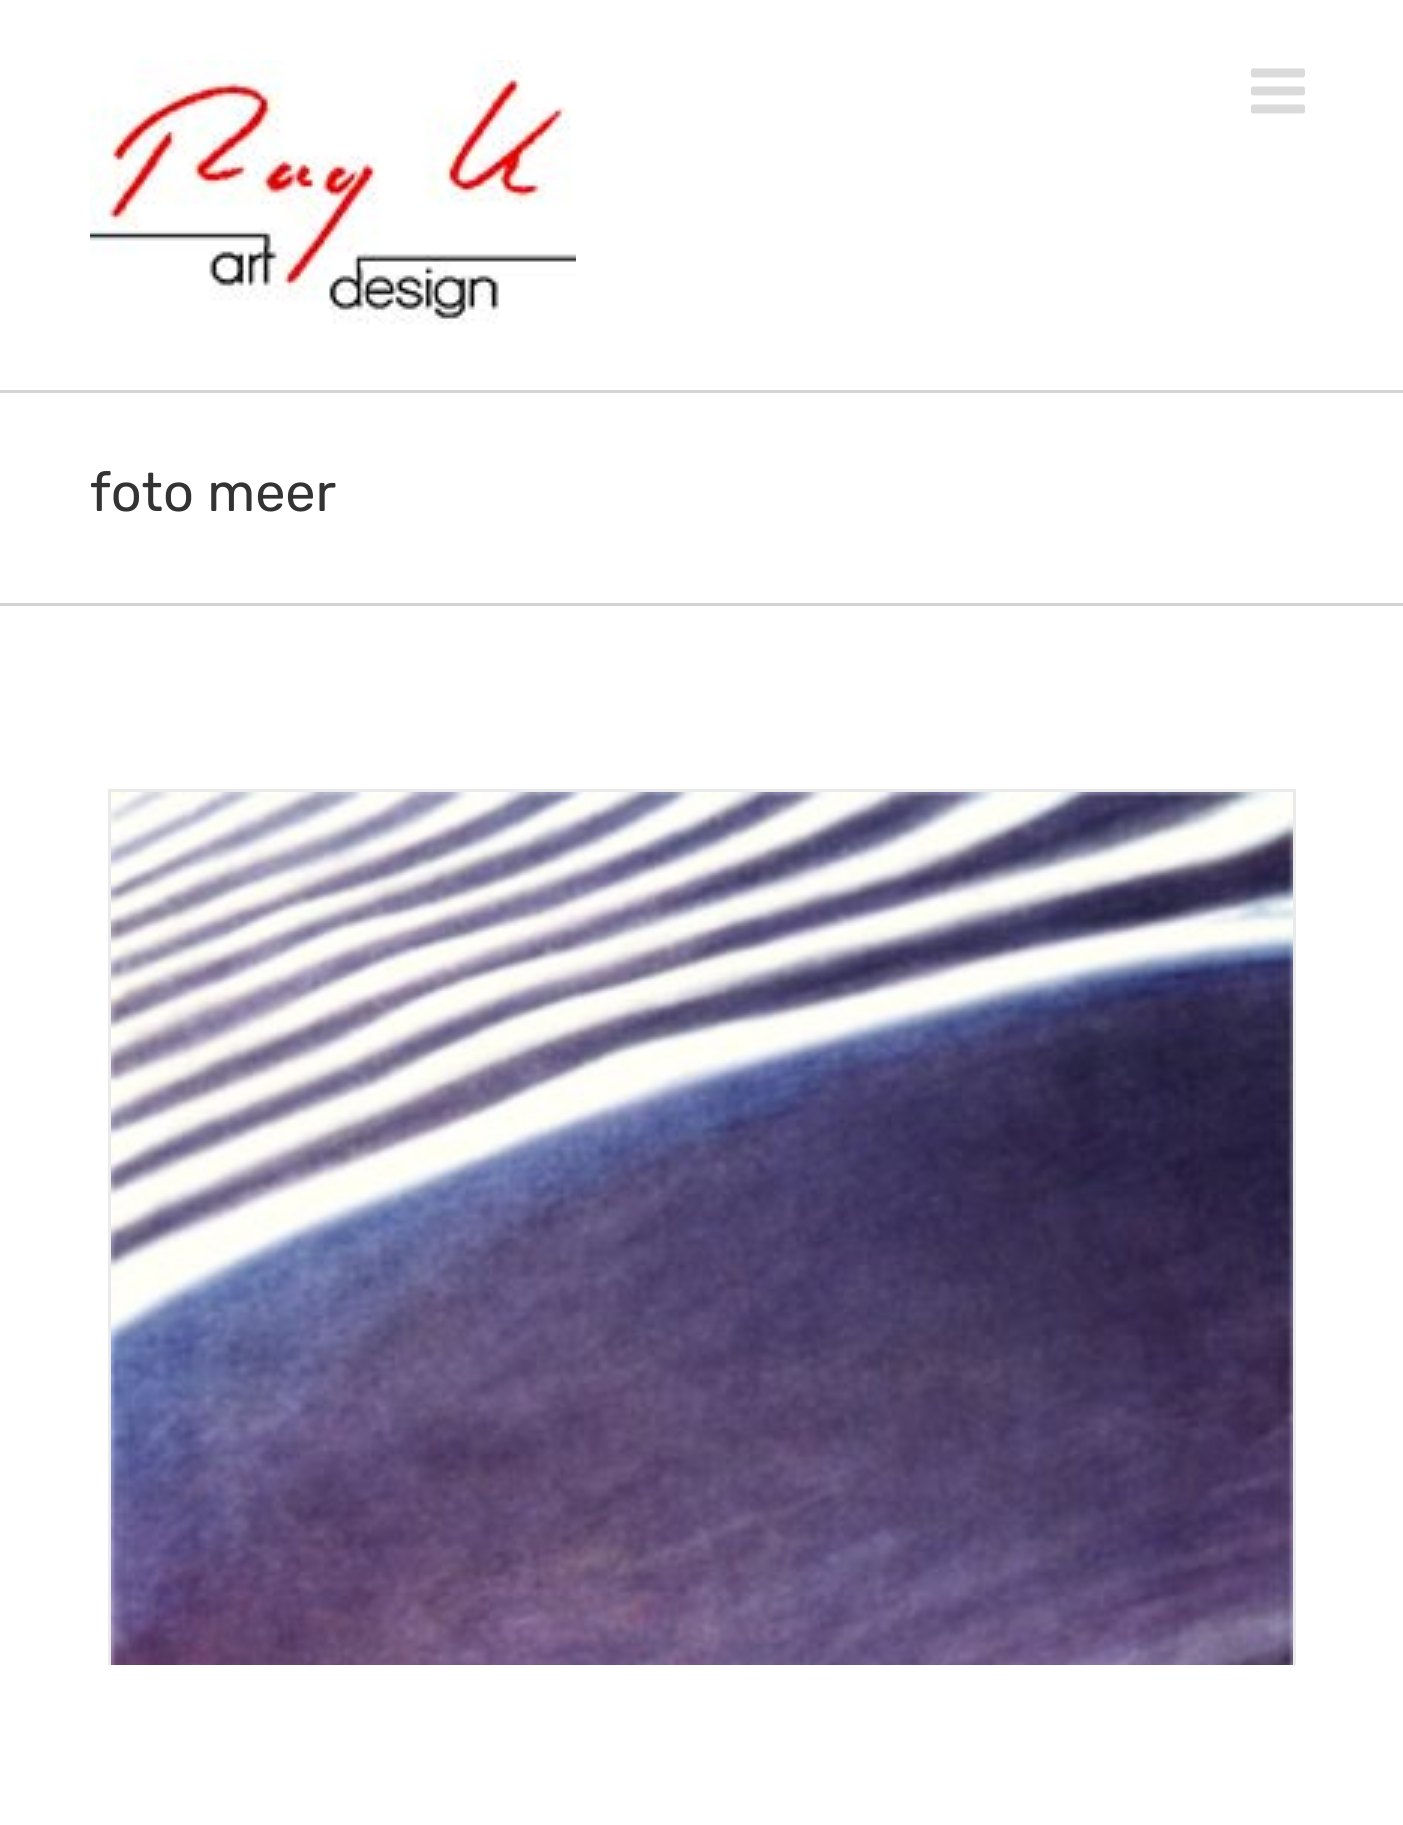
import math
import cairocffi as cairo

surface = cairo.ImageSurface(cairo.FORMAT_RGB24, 1403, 1825)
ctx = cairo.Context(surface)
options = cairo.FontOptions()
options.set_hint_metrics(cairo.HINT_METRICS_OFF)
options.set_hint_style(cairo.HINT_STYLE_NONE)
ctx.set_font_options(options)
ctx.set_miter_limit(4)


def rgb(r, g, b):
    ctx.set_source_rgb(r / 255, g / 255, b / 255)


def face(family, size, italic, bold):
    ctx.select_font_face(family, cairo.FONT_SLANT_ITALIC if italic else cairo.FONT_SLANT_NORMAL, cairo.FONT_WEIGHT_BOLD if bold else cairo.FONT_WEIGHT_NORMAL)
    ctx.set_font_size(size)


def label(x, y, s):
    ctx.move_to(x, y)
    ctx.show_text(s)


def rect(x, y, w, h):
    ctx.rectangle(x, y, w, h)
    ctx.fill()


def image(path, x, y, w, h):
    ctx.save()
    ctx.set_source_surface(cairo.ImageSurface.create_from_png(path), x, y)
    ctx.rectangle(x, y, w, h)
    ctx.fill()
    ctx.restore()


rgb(255, 255, 255)
ctx.paint()
image('image0.png', 90, 60, 486, 265)
image('image1.png', 1251, 68, 54, 46)
rgb(210, 211, 212)
rect(0, 390, 1403, 3)
rect(0, 603, 1403, 3)
face('Rubik Light', 54, 0, 0)
rgb(51, 51, 51)
label(90, 511, 'foto meer')
rgb(235, 234, 234)
rect(108, 789, 1188, 3)
rect(1293, 789, 3, 876)
rect(108, 789, 3, 876)
image('image2.png', 111, 792, 1182, 873)
surface.write_to_png('render.png')
